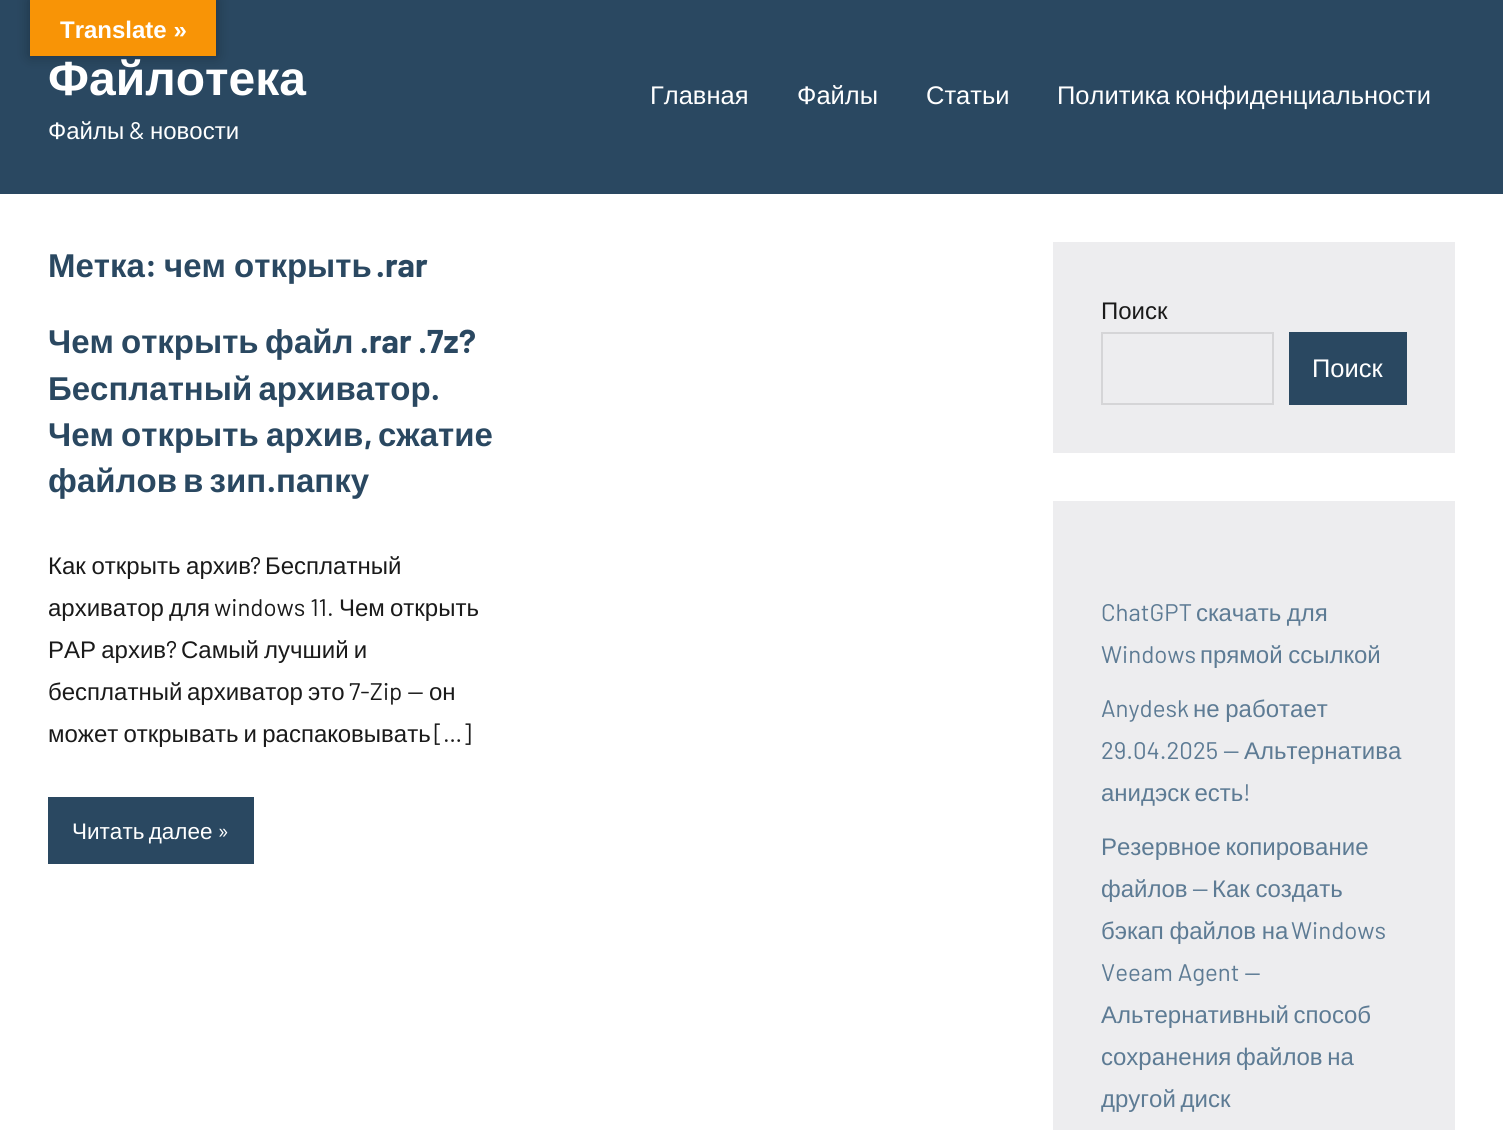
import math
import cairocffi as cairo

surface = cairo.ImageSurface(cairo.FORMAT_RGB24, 1503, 1130)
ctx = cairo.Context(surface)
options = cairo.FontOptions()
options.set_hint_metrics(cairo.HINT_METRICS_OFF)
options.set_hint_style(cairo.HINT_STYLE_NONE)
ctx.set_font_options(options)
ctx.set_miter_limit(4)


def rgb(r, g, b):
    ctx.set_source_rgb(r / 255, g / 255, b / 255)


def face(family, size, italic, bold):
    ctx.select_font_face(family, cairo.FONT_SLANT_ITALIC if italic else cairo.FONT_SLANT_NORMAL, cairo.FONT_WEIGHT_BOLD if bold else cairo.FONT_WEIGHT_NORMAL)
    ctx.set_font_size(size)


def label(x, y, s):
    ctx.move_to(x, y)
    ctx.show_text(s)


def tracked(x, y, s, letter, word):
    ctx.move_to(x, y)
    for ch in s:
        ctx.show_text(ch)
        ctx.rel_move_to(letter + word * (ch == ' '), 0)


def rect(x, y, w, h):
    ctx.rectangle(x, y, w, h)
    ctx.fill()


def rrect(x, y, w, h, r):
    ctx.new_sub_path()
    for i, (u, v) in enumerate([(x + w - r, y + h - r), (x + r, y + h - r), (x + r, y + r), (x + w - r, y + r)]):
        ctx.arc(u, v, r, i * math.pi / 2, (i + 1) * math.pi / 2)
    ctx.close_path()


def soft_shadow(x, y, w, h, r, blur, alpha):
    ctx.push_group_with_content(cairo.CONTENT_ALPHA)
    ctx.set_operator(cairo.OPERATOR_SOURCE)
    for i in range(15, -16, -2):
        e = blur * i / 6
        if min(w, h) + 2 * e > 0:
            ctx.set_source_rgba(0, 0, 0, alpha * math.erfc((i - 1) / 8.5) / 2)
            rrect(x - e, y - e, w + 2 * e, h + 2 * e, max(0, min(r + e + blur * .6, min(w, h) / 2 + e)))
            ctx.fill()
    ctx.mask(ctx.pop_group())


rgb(42, 72, 97)
ctx.paint()
rgb(0, 0, 0)
soft_shadow(30, 0, 186, 56, 0, 7, 0.3)
rgb(248, 148, 6)
rect(30, 0, 186, 56)
face('Liberation Sans', 24, 0, 1)
rgb(255, 255, 255)
label(60, 38, 'Translate »')
face('Liberation Sans', 48, 0, 1)
label(48, 95, 'Файлотека')
face('Liberation Sans', 24, 0, 0)
label(48, 139, 'Файлы')
face('Barlow', 24, 0, 0)
label(129, 139, '&')
face('Liberation Sans', 24, 0, 0)
label(150, 139, 'новости')
face('Liberation Sans', 25.5, 0, 0)
label(650, 104, 'Главная')
label(797, 104, 'Файлы')
label(926, 104, 'Статьи')
tracked(1057, 104, 'Политика конфиденциальности', 0, -2)
rect(0, 194, 1503, 936)
face('Liberation Sans', 33, 0, 1)
rgb(42, 72, 97)
label(48, 277, 'Метка')
face('Barlow', 33, 0, 1)
label(145, 277, ':')
face('Liberation Sans', 33, 0, 1)
tracked(164, 277, 'чем открыть', 0, -1)
face('Barlow', 33, 0, 1)
label(376, 277, '.rar')
face('Liberation Sans', 33, 0, 1)
label(48, 353, 'Чем')
label(121, 353, 'открыть')
label(265, 353, 'файл')
face('Barlow', 33, 0, 1)
label(360, 353, '.rar .7z?')
face('Liberation Sans', 33, 0, 1)
tracked(48, 400, 'Бесплатный архиватор', 0, -3)
face('Barlow', 33, 0, 1)
label(431, 400, '.')
face('Liberation Sans', 33, 0, 1)
tracked(48, 446, 'Чем открыть архив', 0, -2)
face('Barlow', 33, 0, 1)
label(364, 446, ',')
face('Liberation Sans', 33, 0, 1)
label(378, 446, 'сжатие')
tracked(48, 492, 'файлов в зип', 0, -3)
face('Barlow', 33, 0, 1)
label(267, 492, '.')
face('Liberation Sans', 33, 0, 1)
label(276, 492, 'папку')
face('Liberation Sans', 24, 0, 0)
rgb(26, 26, 26)
tracked(48, 574, 'Как открыть архив', 0, -1)
face('Barlow', 24, 0, 0)
label(250, 574, '?')
face('Liberation Sans', 24, 0, 0)
label(265, 574, 'Бесплатный')
label(48, 616, 'архиватор')
label(169, 616, 'для')
face('Barlow', 24, 0, 0)
label(214, 616, 'windows 11.')
face('Liberation Sans', 24, 0, 0)
label(339, 616, 'Чем')
label(390, 616, 'открыть')
tracked(48, 658, 'РАР архив', 0, -1.5)
face('Barlow', 24, 0, 0)
label(166, 658, '?')
face('Liberation Sans', 24, 0, 0)
tracked(181, 658, 'Самый лучший и', 0, -1.5)
label(48, 700, 'бесплатный')
label(187, 700, 'архиватор')
label(308, 700, 'это')
face('Barlow', 24, 0, 0)
label(349, 700, '7-Zip —')
face('Liberation Sans', 24, 0, 0)
label(429, 700, 'он')
tracked(48, 742, 'может открывать и распаковывать', 0, -1.5)
face('Barlow', 24, 0, 0)
label(434, 742, '[…]')
rgb(42, 72, 97)
rect(48, 797, 206, 67)
face('Liberation Sans', 22.5, 0, 0)
rgb(255, 255, 255)
tracked(72, 839, 'Читать далее', 0, -2)
face('Barlow', 22.5, 0, 0)
label(217, 839, '»')
rgb(237, 237, 239)
rect(1053, 242, 402, 211)
face('Liberation Sans', 24, 0, 0)
rgb(26, 26, 26)
label(1101, 319, 'Поиск')
ctx.rectangle(1102, 333, 171, 71)
rgb(213, 213, 215)
ctx.stroke()
rgb(42, 72, 97)
rect(1289, 332, 118, 73)
face('Liberation Sans', 25.5, 0, 0)
rgb(255, 255, 255)
label(1312, 377, 'Поиск')
rgb(237, 237, 239)
rect(1053, 501, 402, 629)
face('Barlow', 24, 0, 0)
rgb(93, 123, 148)
label(1101, 621, 'ChatGPT')
face('Liberation Sans', 24, 0, 0)
tracked(1196, 621, 'скачать для', 0, -1)
face('Barlow', 24, 0, 0)
label(1101, 663, 'Windows')
face('Liberation Sans', 24, 0, 0)
tracked(1200, 663, 'прямой ссылкой', 0, -1)
face('Barlow', 24, 0, 0)
label(1101, 717, 'Anydesk')
face('Liberation Sans', 24, 0, 0)
tracked(1193, 717, 'не работает', 0, -1)
face('Barlow', 24, 0, 0)
label(1101, 759, '29.04.2025 —')
face('Liberation Sans', 24, 0, 0)
label(1244, 759, 'Альтернатива')
tracked(1101, 801, 'анидэск есть', 0, -2)
face('Barlow', 24, 0, 0)
label(1243, 801, '!')
face('Liberation Sans', 24, 0, 0)
tracked(1101, 855, 'Резервное копирование', 0, -2)
label(1101, 897, 'файлов')
face('Barlow', 24, 0, 0)
label(1192, 897, '—')
face('Liberation Sans', 24, 0, 0)
tracked(1212, 897, 'Как создать', 0, -1)
tracked(1101, 939, 'бэкап файлов на', 0, -1)
face('Barlow', 24, 0, 0)
label(1291, 939, 'Windows')
label(1101, 981, 'Veeam Agent —')
face('Liberation Sans', 24, 0, 0)
tracked(1101, 1023, 'Альтернативный способ', 0, -2)
tracked(1101, 1065, 'сохранения файлов на', 0, -2)
tracked(1101, 1107, 'другой диск', 0, -2)
surface.write_to_png('render.png')
